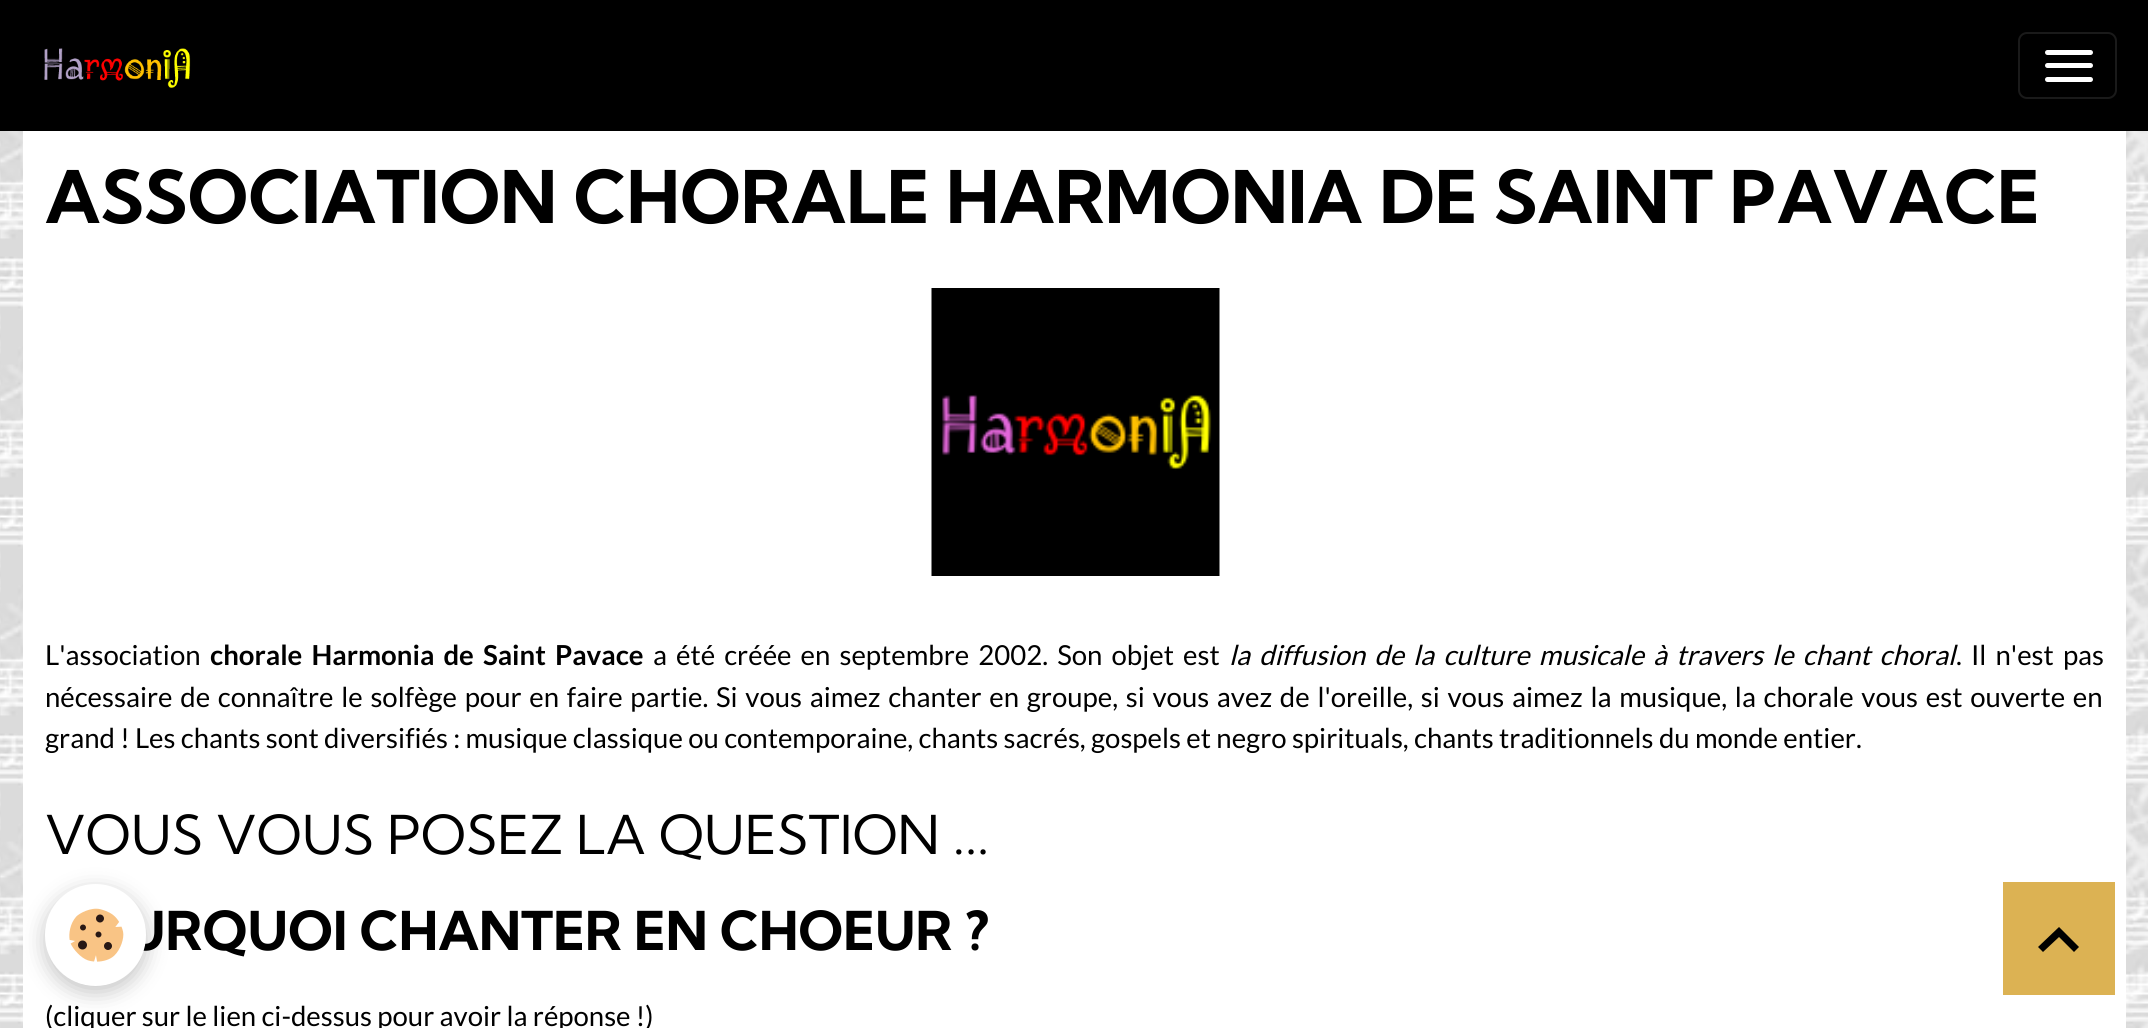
import math
import cairocffi as cairo

surface = cairo.ImageSurface(cairo.FORMAT_RGB24, 2148, 1028)
ctx = cairo.Context(surface)
options = cairo.FontOptions()
options.set_hint_metrics(cairo.HINT_METRICS_OFF)
options.set_hint_style(cairo.HINT_STYLE_NONE)
ctx.set_font_options(options)
ctx.set_miter_limit(4)


def rgb(r, g, b):
    ctx.set_source_rgb(r / 255, g / 255, b / 255)


def face(family, size, italic, bold):
    ctx.select_font_face(family, cairo.FONT_SLANT_ITALIC if italic else cairo.FONT_SLANT_NORMAL, cairo.FONT_WEIGHT_BOLD if bold else cairo.FONT_WEIGHT_NORMAL)
    ctx.set_font_size(size)


def label(x, y, s):
    ctx.move_to(x, y)
    ctx.show_text(s)


def tracked(x, y, s, letter, word):
    ctx.move_to(x, y)
    for ch in s:
        ctx.show_text(ch)
        ctx.rel_move_to(letter + word * (ch == ' '), 0)


def rect(x, y, w, h):
    ctx.rectangle(x, y, w, h)
    ctx.fill()


def rrect(x, y, w, h, r):
    ctx.new_sub_path()
    for i, (u, v) in enumerate([(x + w - r, y + h - r), (x + r, y + h - r), (x + r, y + r), (x + w - r, y + r)]):
        ctx.arc(u, v, r, i * math.pi / 2, (i + 1) * math.pi / 2)
    ctx.close_path()


def soft_shadow(x, y, w, h, r, blur, alpha):
    ctx.push_group_with_content(cairo.CONTENT_ALPHA)
    ctx.set_operator(cairo.OPERATOR_SOURCE)
    for i in range(15, -16, -2):
        e = blur * i / 6
        if min(w, h) + 2 * e > 0:
            ctx.set_source_rgba(0, 0, 0, alpha * math.erfc((i - 1) / 8.5) / 2)
            rrect(x - e, y - e, w + 2 * e, h + 2 * e, max(0, min(r + e + blur * .6, min(w, h) / 2 + e)))
            ctx.fill()
    ctx.mask(ctx.pop_group())


def image(path, x, y, w, h):
    ctx.save()
    ctx.set_source_surface(cairo.ImageSurface.create_from_png(path), x, y)
    ctx.rectangle(x, y, w, h)
    ctx.fill()
    ctx.restore()


rgb(255, 255, 255)
ctx.paint()
image('image0.png', 0, 131, 2148, 897)
rgb(0, 0, 0)
rect(0, 0, 2148, 131)
image('image1.png', 44, 48, 147, 40)
rrect(2019, 33, 97, 65, 8)
rgb(26, 26, 26)
ctx.stroke()
rgb(255, 255, 255)
rrect(2045, 50, 48, 5, 2.5)
ctx.fill()
rrect(2045, 63, 48, 5, 2.5)
ctx.fill()
rrect(2045, 77, 48, 5, 2.5)
ctx.fill()
rect(23, 131, 2103, 897)
face('Kumbh Sans', 72.45, 0, 1)
rgb(0, 0, 0)
label(45, 223, 'ASSOCIATION CHORALE HARMONIA DE SAINT PAVACE')
image('image2.png', 931, 288, 289, 288)
face('Lato', 27.55, 0, 0)
label(45, 665, 'L\'association')
face('Lato', 27.55, 0, 1)
tracked(210, 665, 'chorale Harmonia de Saint Pavace', 0, 3.75)
face('Lato', 27.55, 0, 0)
tracked(653, 665, 'a été créée en septembre 2002. Son objet est', 0, 3.75)
face('Lato', 27.55, 1, 0)
tracked(1229, 665, 'la diffusion de la culture musicale à travers le chant choral', 0, 3.75)
face('Lato', 27.55, 0, 0)
tracked(1956, 665, '. Il n\'est pas', 0, 3.75)
tracked(45, 707, 'nécessaire de connaître le solfège pour en faire partie. Si vous aimez chanter en groupe, si vous avez de l\'oreille, si vous aimez la musique, la chorale vous est ouverte en', 0, 2.4)
label(45, 748, 'grand ! Les chants sont diversifiés : musique classique ou contemporaine, chants sacrés, gospels et negro spirituals, chants traditionnels du monde entier.')
face('Kumbh Sans', 53.5, 0, 0)
label(45, 854, 'VOUS VOUS POSEZ LA QUESTION ...')
face('Kumbh Sans', 53.5, 0, 1)
label(125, 950, 'URQUOI CHANTER EN CHOEUR ?')
face('Lato', 27.55, 0, 0)
label(45, 1026, '(cliquer sur le lien ci-dessus pour avoir la réponse !)')
rgb(0, 0, 0)
soft_shadow(45, 891, 101, 101, 50.5, 11, 0.24)
rgb(255, 255, 255)
rrect(45, 884, 101, 102, 50.5)
ctx.fill()
image('image3.png', 69, 908, 55, 54)
rgb(220, 178, 83)
rect(2003, 882, 112, 113)
rgb(0, 0, 0)
ctx.new_path()
ctx.move_to(2059, 927)
ctx.line_to(2079, 947)
ctx.line_to(2074, 952)
ctx.line_to(2059, 937)
ctx.line_to(2043, 952)
ctx.line_to(2038, 947)
ctx.close_path()
ctx.fill()
surface.write_to_png('render.png')
